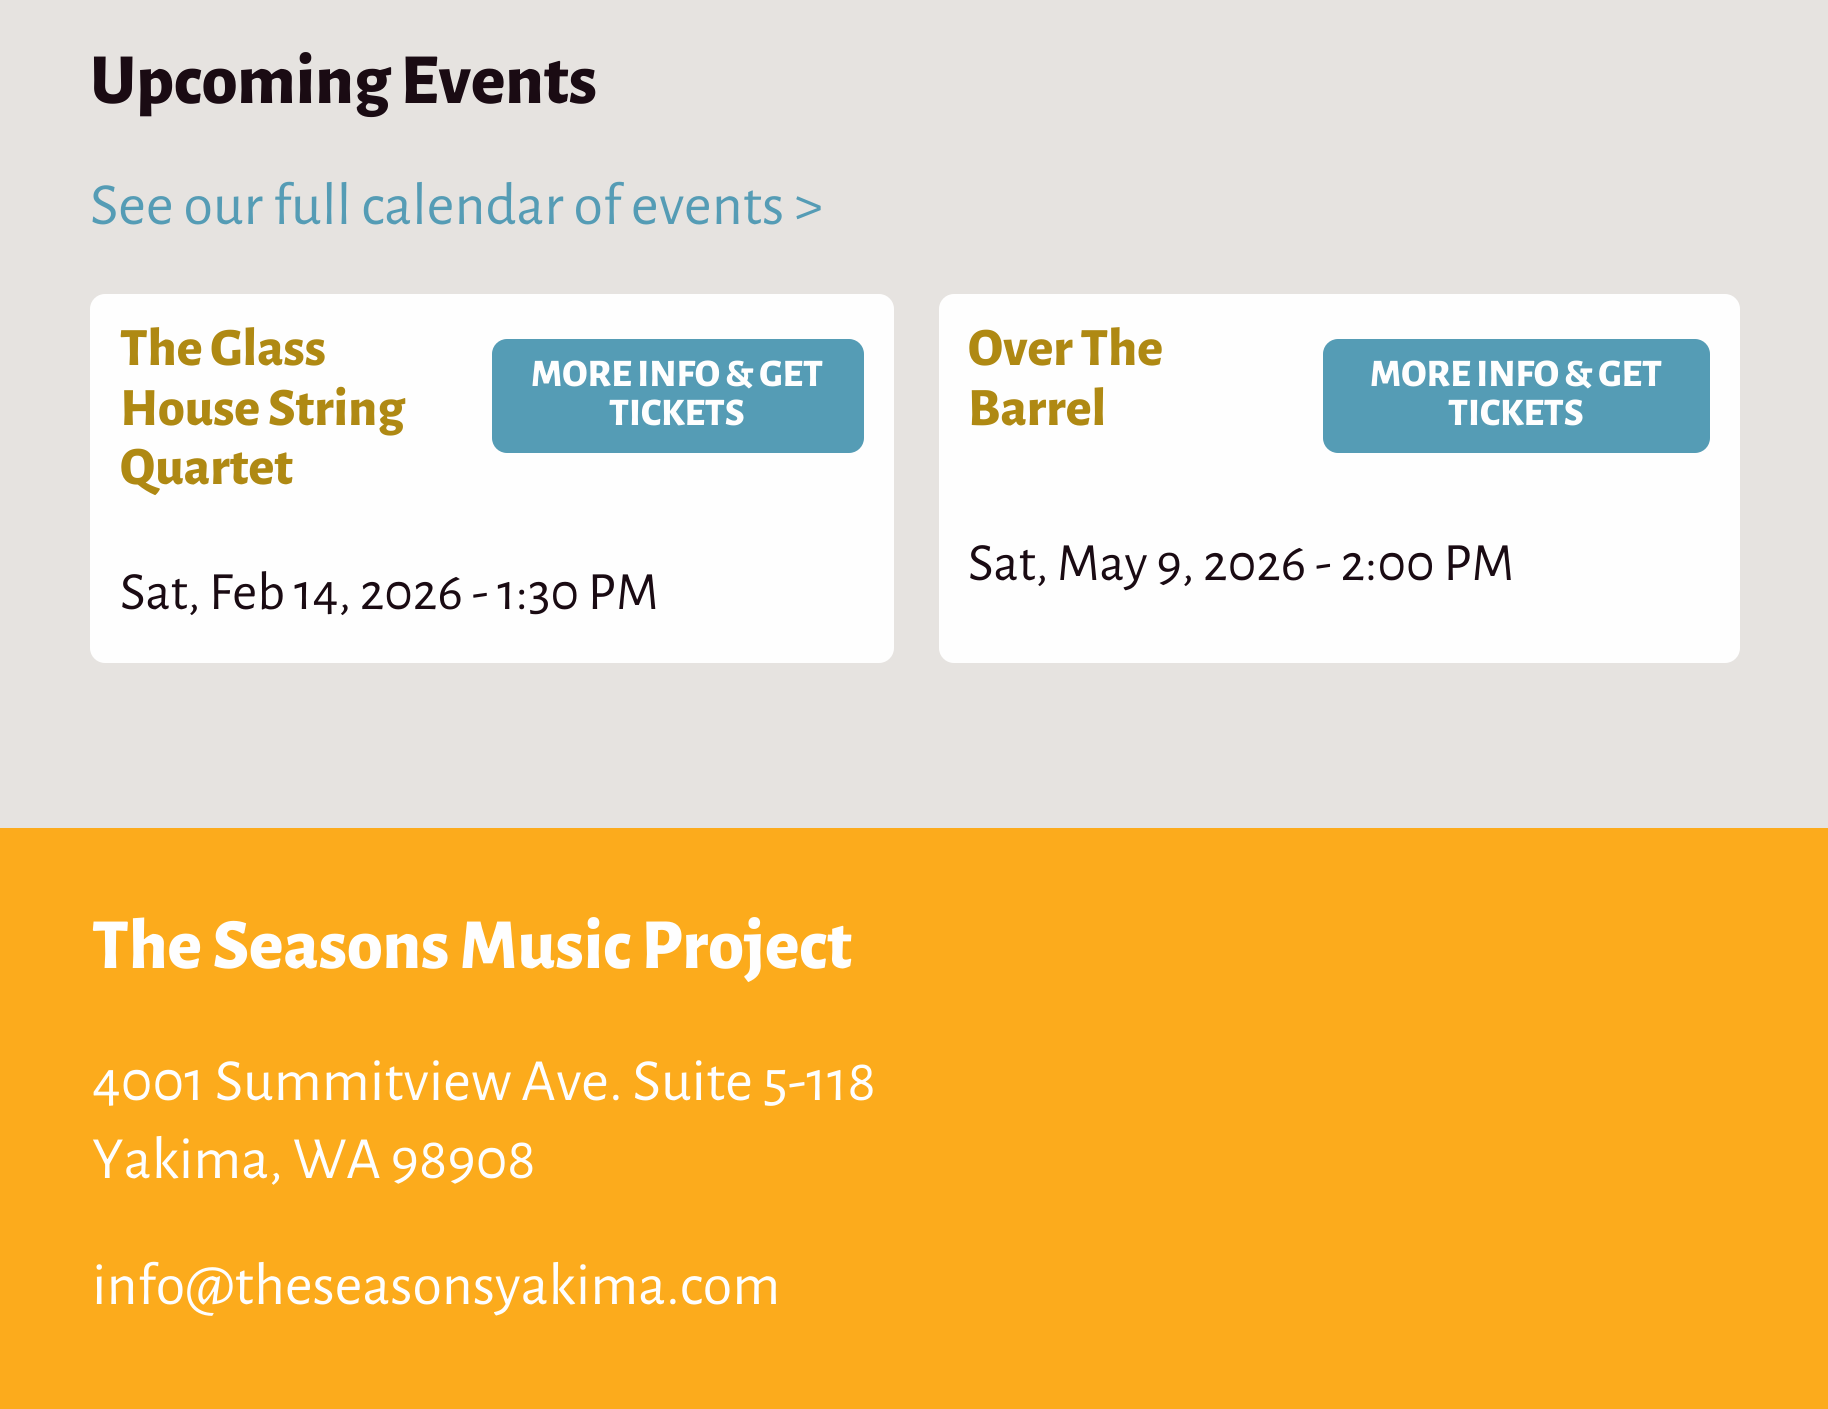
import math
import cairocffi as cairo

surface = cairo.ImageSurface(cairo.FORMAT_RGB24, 1828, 1409)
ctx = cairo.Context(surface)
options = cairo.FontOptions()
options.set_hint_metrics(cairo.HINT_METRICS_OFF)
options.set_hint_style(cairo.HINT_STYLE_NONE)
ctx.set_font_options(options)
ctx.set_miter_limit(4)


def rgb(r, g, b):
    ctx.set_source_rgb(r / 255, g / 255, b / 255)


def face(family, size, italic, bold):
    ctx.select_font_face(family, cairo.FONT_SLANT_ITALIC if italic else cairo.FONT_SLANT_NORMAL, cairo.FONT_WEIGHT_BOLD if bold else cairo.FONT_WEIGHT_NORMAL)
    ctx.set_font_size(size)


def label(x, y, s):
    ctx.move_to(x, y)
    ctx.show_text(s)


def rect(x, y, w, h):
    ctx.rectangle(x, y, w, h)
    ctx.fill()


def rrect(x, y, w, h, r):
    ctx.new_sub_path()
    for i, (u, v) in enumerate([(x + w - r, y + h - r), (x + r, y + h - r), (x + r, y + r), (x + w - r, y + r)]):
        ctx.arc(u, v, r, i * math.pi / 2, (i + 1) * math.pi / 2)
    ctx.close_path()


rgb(252, 171, 28)
ctx.paint()
rgb(230, 227, 224)
rect(0, 0, 1828, 828)
face('Alegreya Sans ExtraBold', 72, 0, 0)
rgb(26, 11, 19)
label(90, 103, 'Upcoming Events')
face('Alegreya Sans', 60, 0, 0)
rgb(85, 156, 181)
label(90, 224, 'See our full calendar of events >')
rgb(254, 254, 254)
rrect(90, 294, 804, 369, 15)
ctx.fill()
face('Alegreya Sans ExtraBold', 54, 0, 0)
rgb(175, 137, 19)
label(120, 365, 'The Glass')
label(120, 425, 'House String')
label(120, 484, 'Quartet')
rgb(85, 156, 181)
rrect(492, 339, 372, 114, 15)
ctx.fill()
face('Alegreya Sans ExtraBold', 39, 0, 0)
rgb(254, 254, 254)
label(531, 386, 'MORE INFO & GET')
label(609, 425, 'TICKETS')
face('Alegreya Sans', 54, 0, 0)
rgb(26, 11, 19)
label(120, 609, 'Sat, Feb 14, 2026 - 1:30 PM')
rgb(254, 254, 254)
rrect(939, 294, 801, 369, 15)
ctx.fill()
face('Alegreya Sans ExtraBold', 54, 0, 0)
rgb(175, 137, 19)
label(968, 365, 'Over The')
label(968, 425, 'Barrel')
rgb(85, 156, 181)
rrect(1323, 339, 387, 114, 15)
ctx.fill()
face('Alegreya Sans ExtraBold', 39, 0, 0)
rgb(254, 254, 254)
label(1370, 386, 'MORE INFO & GET')
label(1448, 425, 'TICKETS')
face('Alegreya Sans', 54, 0, 0)
rgb(26, 11, 19)
label(968, 580, 'Sat, May 9, 2026 - 2:00 PM')
face('Alegreya Sans ExtraBold', 72, 0, 0)
rgb(254, 254, 254)
label(92, 968, 'The Seasons Music Project')
face('Alegreya Sans', 60, 0, 0)
label(92, 1100, '4001 Summitview Ave. Suite 5-118')
label(92, 1178, 'Yakima, WA 98908')
label(92, 1304, 'info@theseasonsyakima.com')
surface.write_to_png('render.png')
